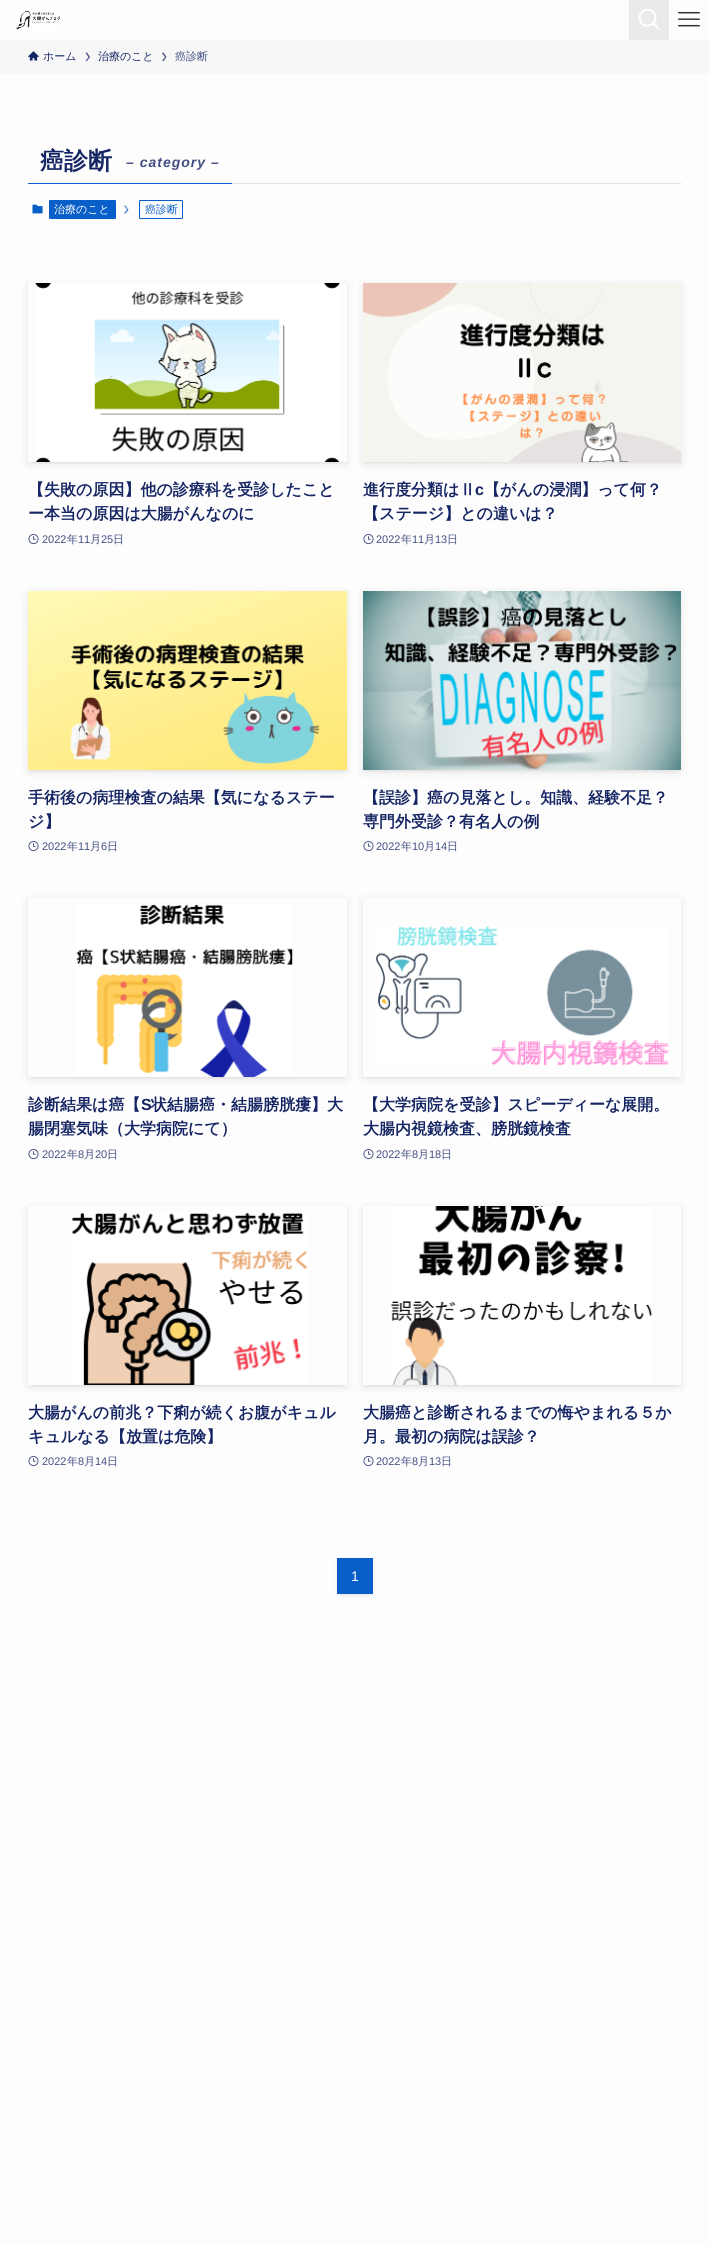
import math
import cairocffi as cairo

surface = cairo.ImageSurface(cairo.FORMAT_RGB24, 709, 2244)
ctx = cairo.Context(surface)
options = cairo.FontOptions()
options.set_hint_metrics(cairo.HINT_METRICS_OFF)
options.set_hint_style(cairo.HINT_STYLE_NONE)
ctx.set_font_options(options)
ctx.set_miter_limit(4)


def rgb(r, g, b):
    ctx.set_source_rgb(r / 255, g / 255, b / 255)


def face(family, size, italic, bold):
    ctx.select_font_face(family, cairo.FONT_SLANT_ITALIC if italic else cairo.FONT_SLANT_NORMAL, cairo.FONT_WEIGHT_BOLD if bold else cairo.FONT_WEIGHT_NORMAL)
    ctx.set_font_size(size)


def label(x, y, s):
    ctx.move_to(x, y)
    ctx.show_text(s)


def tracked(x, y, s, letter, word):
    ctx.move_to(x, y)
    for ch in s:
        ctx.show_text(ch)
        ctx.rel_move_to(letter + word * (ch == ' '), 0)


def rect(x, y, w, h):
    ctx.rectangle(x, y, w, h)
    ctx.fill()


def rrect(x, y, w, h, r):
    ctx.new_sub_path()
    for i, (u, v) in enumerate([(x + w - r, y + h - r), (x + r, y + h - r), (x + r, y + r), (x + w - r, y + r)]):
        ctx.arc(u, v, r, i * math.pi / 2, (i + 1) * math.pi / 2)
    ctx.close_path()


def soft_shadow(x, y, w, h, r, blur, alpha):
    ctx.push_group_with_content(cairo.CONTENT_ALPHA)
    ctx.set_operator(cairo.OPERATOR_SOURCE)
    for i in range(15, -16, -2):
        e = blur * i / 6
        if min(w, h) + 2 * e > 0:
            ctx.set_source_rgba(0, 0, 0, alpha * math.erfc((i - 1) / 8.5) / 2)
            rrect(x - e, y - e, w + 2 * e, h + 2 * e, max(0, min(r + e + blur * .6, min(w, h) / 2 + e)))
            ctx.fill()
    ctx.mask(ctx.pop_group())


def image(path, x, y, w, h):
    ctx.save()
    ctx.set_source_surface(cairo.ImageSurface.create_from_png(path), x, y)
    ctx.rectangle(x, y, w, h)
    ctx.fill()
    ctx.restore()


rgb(253, 253, 253)
ctx.paint()
image('image0.png', 16, 10, 44, 20)
rgb(234, 234, 234)
rect(629, 0, 40, 40)
image('image1.png', 638, 8, 22, 22)
image('image2.png', 678, 11, 22, 16)
rgb(247, 247, 247)
rect(0, 40, 709, 34)
image('image3.png', 28, 51, 11, 10)
face('WenQuanYi Zen Hei Medium', 11, 0, 0)
rgb(21, 36, 99)
label(43, 60, 'ホーム')
rgb(66, 78, 129)
ctx.new_path()
ctx.move_to(87, 52.5)
ctx.line_to(85.5, 53)
ctx.line_to(88.5, 57)
ctx.line_to(85.5, 61)
ctx.line_to(87, 61)
ctx.line_to(90, 57)
ctx.close_path()
ctx.fill()
rgb(21, 36, 99)
label(98, 60, '治療のこと')
rgb(66, 78, 129)
ctx.new_path()
ctx.move_to(163.5, 52.5)
ctx.line_to(162, 53)
ctx.line_to(165, 57)
ctx.line_to(162, 61)
ctx.line_to(163.5, 61)
ctx.line_to(166.5, 57)
ctx.close_path()
ctx.fill()
label(175, 60, '癌診断')
rgb(226, 226, 226)
rect(232, 183, 449, 1)
rgb(8, 95, 201)
rect(28, 183, 204, 1)
face('WenQuanYi Zen Hei', 24, 0, 1)
rgb(21, 36, 99)
label(40, 169, '癌診断')
face('Liberation Sans', 14, 1, 1)
rgb(66, 78, 129)
tracked(126, 167, '– category –', 1, 0)
image('image4.png', 32, 204, 11, 10)
rgb(8, 95, 201)
rrect(49, 200, 67, 19, 1)
ctx.fill()
face('WenQuanYi Zen Hei Medium', 11, 0, 0)
rgb(255, 255, 255)
label(54, 213, '治療のこと')
rgb(57, 127, 211)
ctx.new_path()
ctx.move_to(125.5, 205.5)
ctx.line_to(124, 205.5)
ctx.line_to(127, 209.5)
ctx.line_to(124, 213.5)
ctx.line_to(125.5, 213.5)
ctx.line_to(128.5, 210)
ctx.close_path()
ctx.fill()
rrect(139.5, 200.5, 43, 18, 0.5)
rgb(8, 95, 201)
ctx.set_line_width(1)
ctx.stroke()
label(145, 213, '癌診断')
ctx.save()
ctx.rectangle(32, 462, 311, 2)
ctx.clip()
rgb(0, 0, 0)
soft_shadow(32, 291, 311, 171, 0, 2, 0.1)
ctx.restore()
ctx.save()
ctx.set_fill_rule(cairo.FILL_RULE_EVEN_ODD)
ctx.new_path()
ctx.move_to(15, 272)
ctx.line_to(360, 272)
ctx.line_to(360, 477)
ctx.line_to(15, 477)
ctx.close_path()
ctx.move_to(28, 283)
ctx.line_to(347, 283)
ctx.line_to(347, 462)
ctx.line_to(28, 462)
ctx.close_path()
ctx.clip()
rgb(0, 0, 0)
soft_shadow(28, 285, 319, 179, 0, 4, 0.1)
ctx.restore()
image('image5.png', 35, 283, 305, 179)
face('WenQuanYi Zen Hei', 16, 0, 1)
rgb(21, 36, 99)
label(28, 495, '【失敗の原因】他の診療科を受診したこと')
label(28, 519, 'ー本当の原因は大腸がんなのに')
image('image6.png', 28, 534, 11, 11)
face('Liberation Sans', 11, 0, 0)
rgb(66, 78, 129)
label(42, 543, '2022')
face('WenQuanYi Zen Hei Medium', 11, 0, 0)
label(67, 543, '年')
face('Liberation Sans', 11, 0, 0)
label(78, 543, '11')
face('WenQuanYi Zen Hei Medium', 11, 0, 0)
label(90, 543, '月')
face('Liberation Sans', 11, 0, 0)
label(101, 543, '25')
face('WenQuanYi Zen Hei Medium', 11, 0, 0)
label(113, 543, '日')
rgb(0, 0, 0)
soft_shadow(367, 291, 310, 171, 0, 2, 0.1)
soft_shadow(363, 285, 318, 179, 0, 4, 0.1)
image('image7.png', 363, 283, 318, 179)
face('WenQuanYi Zen Hei', 16, 0, 1)
rgb(21, 36, 99)
label(363, 495, '進行度分類はⅡ')
face('Liberation Sans', 16, 0, 1)
label(475, 495, 'c')
face('WenQuanYi Zen Hei', 16, 0, 1)
label(484, 495, '【がんの浸潤】って何？')
label(363, 519, '【ステージ】との違いは？')
image('image6.png', 363, 534, 11, 11)
face('Liberation Sans', 11, 0, 0)
rgb(66, 78, 129)
label(376, 543, '2022')
face('WenQuanYi Zen Hei Medium', 11, 0, 0)
label(401, 543, '年')
face('Liberation Sans', 11, 0, 0)
label(412, 543, '11')
face('WenQuanYi Zen Hei Medium', 11, 0, 0)
label(424, 543, '月')
face('Liberation Sans', 11, 0, 0)
label(435, 543, '13')
face('WenQuanYi Zen Hei Medium', 11, 0, 0)
label(447, 543, '日')
rgb(0, 0, 0)
soft_shadow(32, 599, 311, 171, 0, 2, 0.1)
soft_shadow(28, 593, 319, 179, 0, 4, 0.1)
image('image8.png', 28, 591, 319, 179)
face('WenQuanYi Zen Hei', 16, 0, 1)
rgb(21, 36, 99)
label(28, 803, '手術後の病理検査の結果【気になるステー')
label(28, 827, 'ジ】')
image('image6.png', 28, 841, 11, 11)
face('Liberation Sans', 11, 0, 0)
rgb(66, 78, 129)
label(42, 850, '2022')
face('WenQuanYi Zen Hei Medium', 11, 0, 0)
label(67, 850, '年')
face('Liberation Sans', 11, 0, 0)
label(78, 850, '11')
face('WenQuanYi Zen Hei Medium', 11, 0, 0)
label(90, 850, '月')
face('Liberation Sans', 11, 0, 0)
label(101, 850, '6')
face('WenQuanYi Zen Hei Medium', 11, 0, 0)
label(107, 850, '日')
rgb(0, 0, 0)
soft_shadow(367, 599, 310, 171, 0, 2, 0.1)
soft_shadow(363, 593, 318, 179, 0, 4, 0.1)
image('image9.png', 363, 591, 318, 179)
face('WenQuanYi Zen Hei', 16, 0, 1)
rgb(21, 36, 99)
label(363, 803, '【誤診】癌の見落とし。知識、経験不足？')
label(363, 827, '専門外受診？有名人の例')
image('image6.png', 363, 841, 11, 11)
face('Liberation Sans', 11, 0, 0)
rgb(66, 78, 129)
label(376, 850, '2022')
face('WenQuanYi Zen Hei Medium', 11, 0, 0)
label(401, 850, '年')
face('Liberation Sans', 11, 0, 0)
label(412, 850, '10')
face('WenQuanYi Zen Hei Medium', 11, 0, 0)
label(424, 850, '月')
face('Liberation Sans', 11, 0, 0)
label(435, 850, '14')
face('WenQuanYi Zen Hei Medium', 11, 0, 0)
label(447, 850, '日')
ctx.save()
ctx.rectangle(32, 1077, 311, 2)
ctx.clip()
rgb(0, 0, 0)
soft_shadow(32, 906, 311, 171, 0, 2, 0.1)
ctx.restore()
ctx.save()
ctx.set_fill_rule(cairo.FILL_RULE_EVEN_ODD)
ctx.new_path()
ctx.move_to(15, 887)
ctx.line_to(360, 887)
ctx.line_to(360, 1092)
ctx.line_to(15, 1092)
ctx.close_path()
ctx.move_to(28, 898)
ctx.line_to(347, 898)
ctx.line_to(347, 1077)
ctx.line_to(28, 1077)
ctx.close_path()
ctx.clip()
rgb(0, 0, 0)
soft_shadow(28, 900, 319, 179, 0, 4, 0.1)
ctx.restore()
image('image10.png', 76, 904, 217, 173)
face('WenQuanYi Zen Hei', 16, 0, 1)
rgb(21, 36, 99)
label(28, 1110, '診断結果は癌【')
face('Liberation Sans', 16, 0, 1)
label(141, 1110, 'S')
face('WenQuanYi Zen Hei', 16, 0, 1)
label(151, 1110, '状結腸癌・結腸膀胱瘻】大')
label(28, 1134, '腸閉塞気味（大学病院にて）')
image('image6.png', 28, 1149, 11, 11)
face('Liberation Sans', 11, 0, 0)
rgb(66, 78, 129)
label(42, 1158, '2022')
face('WenQuanYi Zen Hei Medium', 11, 0, 0)
label(67, 1158, '年')
face('Liberation Sans', 11, 0, 0)
label(78, 1158, '8')
face('WenQuanYi Zen Hei Medium', 11, 0, 0)
label(84, 1158, '月')
face('Liberation Sans', 11, 0, 0)
label(95, 1158, '20')
face('WenQuanYi Zen Hei Medium', 11, 0, 0)
label(107, 1158, '日')
ctx.save()
ctx.rectangle(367, 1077, 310, 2)
ctx.clip()
rgb(0, 0, 0)
soft_shadow(367, 906, 310, 171, 0, 2, 0.1)
ctx.restore()
ctx.save()
ctx.set_fill_rule(cairo.FILL_RULE_EVEN_ODD)
ctx.new_path()
ctx.move_to(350, 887)
ctx.line_to(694, 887)
ctx.line_to(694, 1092)
ctx.line_to(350, 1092)
ctx.close_path()
ctx.move_to(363, 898)
ctx.line_to(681, 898)
ctx.line_to(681, 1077)
ctx.line_to(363, 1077)
ctx.close_path()
ctx.clip()
rgb(0, 0, 0)
soft_shadow(363, 900, 318, 179, 0, 4, 0.1)
ctx.restore()
image('image11.png', 375, 926, 294, 140)
face('WenQuanYi Zen Hei', 16, 0, 1)
rgb(21, 36, 99)
label(363, 1110, '【大学病院を受診】スピーディーな展開。')
label(363, 1134, '大腸内視鏡検査、膀胱鏡検査')
image('image6.png', 363, 1149, 11, 11)
face('Liberation Sans', 11, 0, 0)
rgb(66, 78, 129)
label(376, 1158, '2022')
face('WenQuanYi Zen Hei Medium', 11, 0, 0)
label(401, 1158, '年')
face('Liberation Sans', 11, 0, 0)
label(412, 1158, '8')
face('WenQuanYi Zen Hei Medium', 11, 0, 0)
label(418, 1158, '月')
face('Liberation Sans', 11, 0, 0)
label(429, 1158, '18')
face('WenQuanYi Zen Hei Medium', 11, 0, 0)
label(441, 1158, '日')
ctx.save()
ctx.rectangle(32, 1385, 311, 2)
ctx.clip()
rgb(0, 0, 0)
soft_shadow(32, 1214, 311, 171, 0, 2, 0.1)
ctx.restore()
ctx.save()
ctx.set_fill_rule(cairo.FILL_RULE_EVEN_ODD)
ctx.new_path()
ctx.move_to(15, 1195)
ctx.line_to(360, 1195)
ctx.line_to(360, 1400)
ctx.line_to(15, 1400)
ctx.close_path()
ctx.move_to(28, 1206)
ctx.line_to(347, 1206)
ctx.line_to(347, 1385)
ctx.line_to(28, 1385)
ctx.close_path()
ctx.clip()
rgb(0, 0, 0)
soft_shadow(28, 1208, 319, 179, 0, 4, 0.1)
ctx.restore()
image('image12.png', 71, 1212, 237, 173)
face('WenQuanYi Zen Hei', 16, 0, 1)
rgb(21, 36, 99)
label(28, 1418, '大腸がんの前兆？下痢が続くお腹がキュル')
label(28, 1442, 'キュルなる【放置は危険】')
image('image6.png', 28, 1456, 11, 11)
face('Liberation Sans', 11, 0, 0)
rgb(66, 78, 129)
label(42, 1465, '2022')
face('WenQuanYi Zen Hei Medium', 11, 0, 0)
label(67, 1465, '年')
face('Liberation Sans', 11, 0, 0)
label(78, 1465, '8')
face('WenQuanYi Zen Hei Medium', 11, 0, 0)
label(84, 1465, '月')
face('Liberation Sans', 11, 0, 0)
label(95, 1465, '14')
face('WenQuanYi Zen Hei Medium', 11, 0, 0)
label(107, 1465, '日')
ctx.save()
ctx.rectangle(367, 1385, 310, 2)
ctx.clip()
rgb(0, 0, 0)
soft_shadow(367, 1214, 310, 171, 0, 2, 0.1)
ctx.restore()
ctx.save()
ctx.set_fill_rule(cairo.FILL_RULE_EVEN_ODD)
ctx.new_path()
ctx.move_to(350, 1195)
ctx.line_to(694, 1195)
ctx.line_to(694, 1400)
ctx.line_to(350, 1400)
ctx.close_path()
ctx.move_to(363, 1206)
ctx.line_to(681, 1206)
ctx.line_to(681, 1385)
ctx.line_to(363, 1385)
ctx.close_path()
ctx.clip()
rgb(0, 0, 0)
soft_shadow(363, 1208, 318, 179, 0, 4, 0.1)
ctx.restore()
image('image13.png', 390, 1206, 263, 179)
face('WenQuanYi Zen Hei', 16, 0, 1)
rgb(21, 36, 99)
label(363, 1418, '大腸癌と診断されるまでの悔やまれる５か')
label(363, 1442, '月。最初の病院は誤診？')
image('image6.png', 363, 1456, 11, 11)
face('Liberation Sans', 11, 0, 0)
rgb(66, 78, 129)
label(376, 1465, '2022')
face('WenQuanYi Zen Hei Medium', 11, 0, 0)
label(401, 1465, '年')
face('Liberation Sans', 11, 0, 0)
label(412, 1465, '8')
face('WenQuanYi Zen Hei Medium', 11, 0, 0)
label(418, 1465, '月')
face('Liberation Sans', 11, 0, 0)
label(429, 1465, '13')
face('WenQuanYi Zen Hei Medium', 11, 0, 0)
label(441, 1465, '日')
rgb(0, 0, 0)
soft_shadow(341, 1566, 28, 28, 0, 2, 0.1)
soft_shadow(337, 1560, 36, 36, 0, 2, 0.05)
rgb(8, 95, 201)
rect(337, 1558, 36, 36)
face('Liberation Sans', 14, 0, 0)
rgb(255, 255, 255)
label(351, 1581, '1')
surface.write_to_png('render.png')
